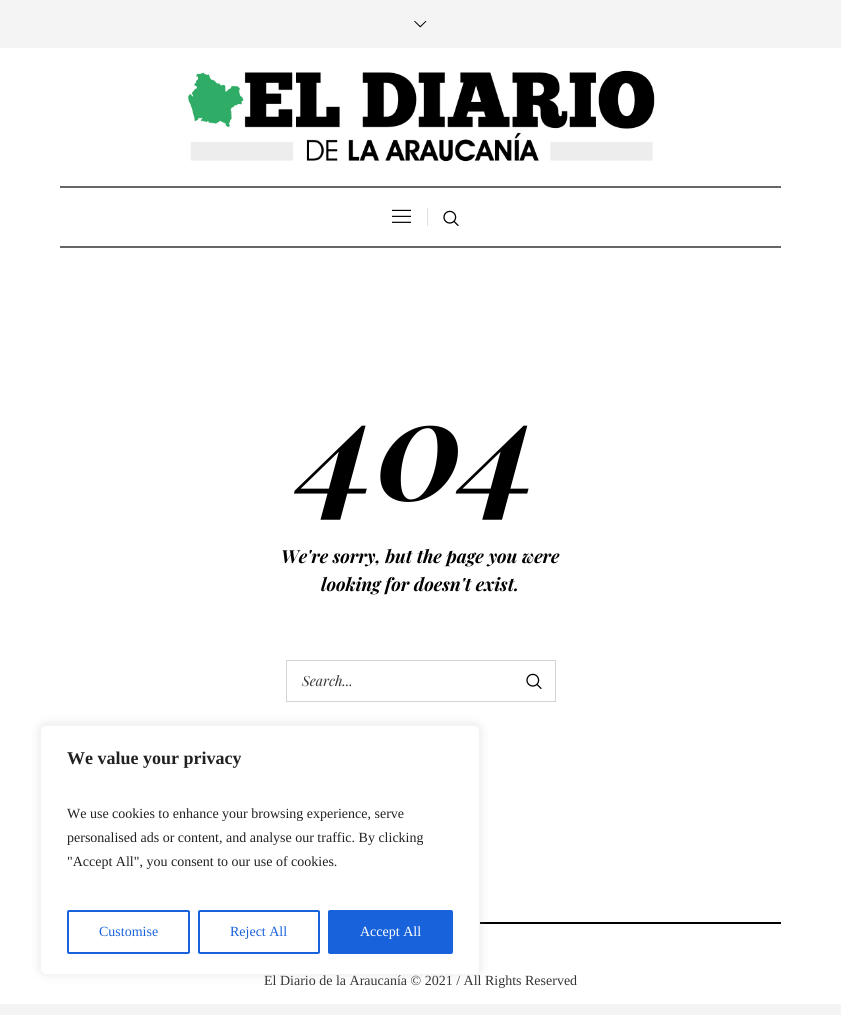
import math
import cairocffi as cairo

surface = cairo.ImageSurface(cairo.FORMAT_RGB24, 841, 1015)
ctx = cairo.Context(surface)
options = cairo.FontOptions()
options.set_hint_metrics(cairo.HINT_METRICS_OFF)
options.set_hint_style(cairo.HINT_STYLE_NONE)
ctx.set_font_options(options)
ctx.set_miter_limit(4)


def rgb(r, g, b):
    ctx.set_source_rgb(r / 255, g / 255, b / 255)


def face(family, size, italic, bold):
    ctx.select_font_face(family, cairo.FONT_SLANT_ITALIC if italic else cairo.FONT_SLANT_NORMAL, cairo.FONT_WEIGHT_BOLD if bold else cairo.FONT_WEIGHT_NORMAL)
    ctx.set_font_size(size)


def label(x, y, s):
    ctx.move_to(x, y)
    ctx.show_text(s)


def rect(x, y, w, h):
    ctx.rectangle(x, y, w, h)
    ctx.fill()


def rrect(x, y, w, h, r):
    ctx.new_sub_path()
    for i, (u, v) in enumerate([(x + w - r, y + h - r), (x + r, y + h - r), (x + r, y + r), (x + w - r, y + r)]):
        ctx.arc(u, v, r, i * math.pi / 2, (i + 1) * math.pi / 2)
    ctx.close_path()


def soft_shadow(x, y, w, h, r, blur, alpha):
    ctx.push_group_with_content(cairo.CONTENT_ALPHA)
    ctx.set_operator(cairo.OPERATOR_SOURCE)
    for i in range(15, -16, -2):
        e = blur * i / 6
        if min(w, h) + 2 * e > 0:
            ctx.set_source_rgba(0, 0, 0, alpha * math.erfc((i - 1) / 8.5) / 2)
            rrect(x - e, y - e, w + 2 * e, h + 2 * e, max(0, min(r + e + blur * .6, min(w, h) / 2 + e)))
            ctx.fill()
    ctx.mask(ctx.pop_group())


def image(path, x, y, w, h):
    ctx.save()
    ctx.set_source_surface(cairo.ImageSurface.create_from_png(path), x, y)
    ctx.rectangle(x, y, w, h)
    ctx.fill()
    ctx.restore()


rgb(244, 244, 244)
ctx.paint()
image('image0.png', 414, 20, 13, 8)
rgb(255, 255, 255)
rect(0, 48, 841, 200)
image('image1.png', 188, 70, 467, 92)
rgb(102, 102, 102)
rect(60, 186, 721, 2)
rect(60, 246, 721, 2)
image('image2.png', 392, 209, 19, 14)
rgb(223, 223, 223)
rect(427, 208, 1, 18)
image('image3.png', 443, 210, 16, 16)
rgb(255, 255, 255)
rect(0, 248, 841, 756)
face('Playfair Display', 140, 1, 1)
rgb(0, 0, 0)
label(302, 500, '404')
face('Playfair Display', 18, 1, 1)
label(281, 563, 'We\'re sorry, but the page you were')
label(321, 591, 'looking for doesn\'t exist.')
ctx.rectangle(286.5, 660.5, 269, 41)
rgb(212, 212, 212)
ctx.set_line_width(1)
ctx.stroke()
face('Playfair Display', 14, 1, 0)
rgb(51, 51, 51)
label(302, 686, 'Search...')
image('image3.png', 526, 673, 16, 16)
rgb(0, 0, 0)
rect(480, 922, 301, 2)
face('Liberation Serif', 14, 0, 0)
rgb(51, 51, 51)
label(264, 985, 'El Diario de la Araucanía © 2021 / All Rights Reserved')
rgb(172, 171, 171)
soft_shadow(40, 724, 440, 250, 6, 5, 0.3)
rgb(255, 255, 255)
rrect(40.5, 725.5, 439, 249, 5.5)
ctx.fill_preserve()
rgb(244, 244, 244)
ctx.stroke()
face('Liberation Serif', 18, 0, 1)
rgb(33, 33, 33)
label(67, 764, 'We value your privacy')
face('Liberation Serif', 14, 0, 0)
label(67, 818, 'We use cookies to enhance your browsing experience, serve')
label(67, 842, 'personalised ads or content, and analyse our traffic. By clicking')
label(67, 866, '"Accept All", you consent to our use of cookies.')
rrect(68, 911, 121, 42, 1)
rgb(24, 99, 220)
ctx.set_line_width(2)
ctx.stroke()
label(99, 936, 'Customise')
rrect(199, 911, 120, 42, 1)
ctx.stroke()
label(230, 936, 'Reject All')
rrect(329, 911, 123, 42, 1)
ctx.fill_preserve()
ctx.stroke()
rgb(255, 255, 255)
label(360, 936, 'Accept All')
surface.write_to_png('render.png')
